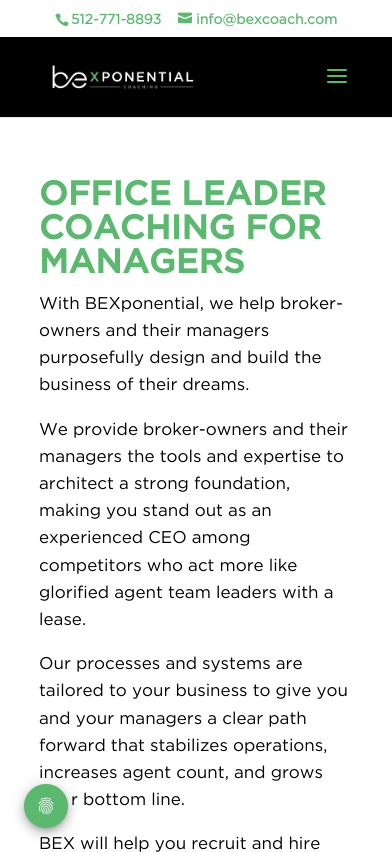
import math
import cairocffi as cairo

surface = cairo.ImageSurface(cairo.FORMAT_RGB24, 392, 852)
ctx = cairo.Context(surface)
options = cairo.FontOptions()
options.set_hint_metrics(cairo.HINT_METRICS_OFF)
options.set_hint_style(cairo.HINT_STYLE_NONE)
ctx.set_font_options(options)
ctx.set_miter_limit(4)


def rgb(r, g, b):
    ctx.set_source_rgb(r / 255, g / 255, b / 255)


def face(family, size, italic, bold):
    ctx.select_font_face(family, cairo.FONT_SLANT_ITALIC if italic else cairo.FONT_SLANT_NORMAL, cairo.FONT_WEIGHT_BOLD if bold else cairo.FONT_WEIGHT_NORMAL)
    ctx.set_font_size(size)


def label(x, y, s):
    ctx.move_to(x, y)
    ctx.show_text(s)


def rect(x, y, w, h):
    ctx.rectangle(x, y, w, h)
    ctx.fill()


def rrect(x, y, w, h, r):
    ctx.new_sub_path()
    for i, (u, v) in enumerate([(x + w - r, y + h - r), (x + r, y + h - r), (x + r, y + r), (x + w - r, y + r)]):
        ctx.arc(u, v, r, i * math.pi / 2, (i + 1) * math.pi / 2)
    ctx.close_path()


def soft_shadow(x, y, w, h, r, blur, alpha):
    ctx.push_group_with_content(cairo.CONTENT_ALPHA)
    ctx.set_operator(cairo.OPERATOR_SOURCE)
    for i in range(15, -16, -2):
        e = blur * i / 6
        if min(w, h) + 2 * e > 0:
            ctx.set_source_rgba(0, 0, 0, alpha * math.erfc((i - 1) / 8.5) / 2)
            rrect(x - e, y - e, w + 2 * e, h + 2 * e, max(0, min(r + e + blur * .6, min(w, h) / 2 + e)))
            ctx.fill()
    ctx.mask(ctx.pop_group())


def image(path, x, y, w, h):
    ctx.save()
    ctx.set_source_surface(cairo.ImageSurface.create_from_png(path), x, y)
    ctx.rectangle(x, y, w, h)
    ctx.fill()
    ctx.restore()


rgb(255, 255, 255)
ctx.paint()
image('image0.png', 55, 13, 14, 14)
face('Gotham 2', 14, 0, 1)
rgb(90, 184, 111)
label(71, 24, '512-771-8893')
image('image1.png', 178, 12, 14, 12)
label(196, 24, 'info@bexcoach.com')
rgb(230, 230, 230)
rect(0, 117, 392, 1)
rgb(0, 0, 0)
rect(0, 37, 392, 80)
image('image2.png', 52, 65, 142, 24)
image('image3.png', 327, 69, 20, 14)
face('Gotham', 34, 0, 1)
rgb(90, 184, 111)
label(39, 205, 'OFFICE LEADER')
label(39, 239, 'COACHING FOR')
label(39, 273, 'MANAGERS')
face('Gotham', 17, 0, 0)
rgb(0, 0, 0)
label(39, 309, 'With BEXponential, we help broker-')
label(39, 336, 'owners and their managers')
label(39, 363, 'purposefully design and build the')
label(39, 390, 'business of their dreams.')
label(39, 435, 'We provide broker-owners and their')
label(39, 462, 'managers the tools and expertise to')
label(39, 489, 'architect a strong foundation,')
label(39, 516, 'making you stand out as an')
label(39, 543, 'experienced CEO among')
label(39, 571, 'competitors who act more like')
label(39, 598, 'glorified agent team leaders with a')
label(39, 625, 'lease.')
label(39, 669, 'Our processes and systems are')
label(39, 696, 'tailored to your business to give you')
label(39, 724, 'and your managers a clear path')
label(39, 751, 'forward that stabilizes operations,')
label(39, 778, 'increases agent count, and grows')
label(71, 805, 'r bottom line.')
label(39, 849, 'BEX will help you recruit and hire')
rgb(0, 0, 0)
soft_shadow(24, 785, 44, 44, 22, 9, 0.12)
soft_shadow(24, 790, 44, 44, 22, 5, 0.14)
soft_shadow(25, 788, 42, 42, 21, 2.5, 0.2)
rgb(90, 184, 111)
ctx.arc(46, 806, 22, 0, 2 * math.pi)
ctx.fill()
image('image4.png', 38, 797, 16, 18)
surface.write_to_png('render.png')
